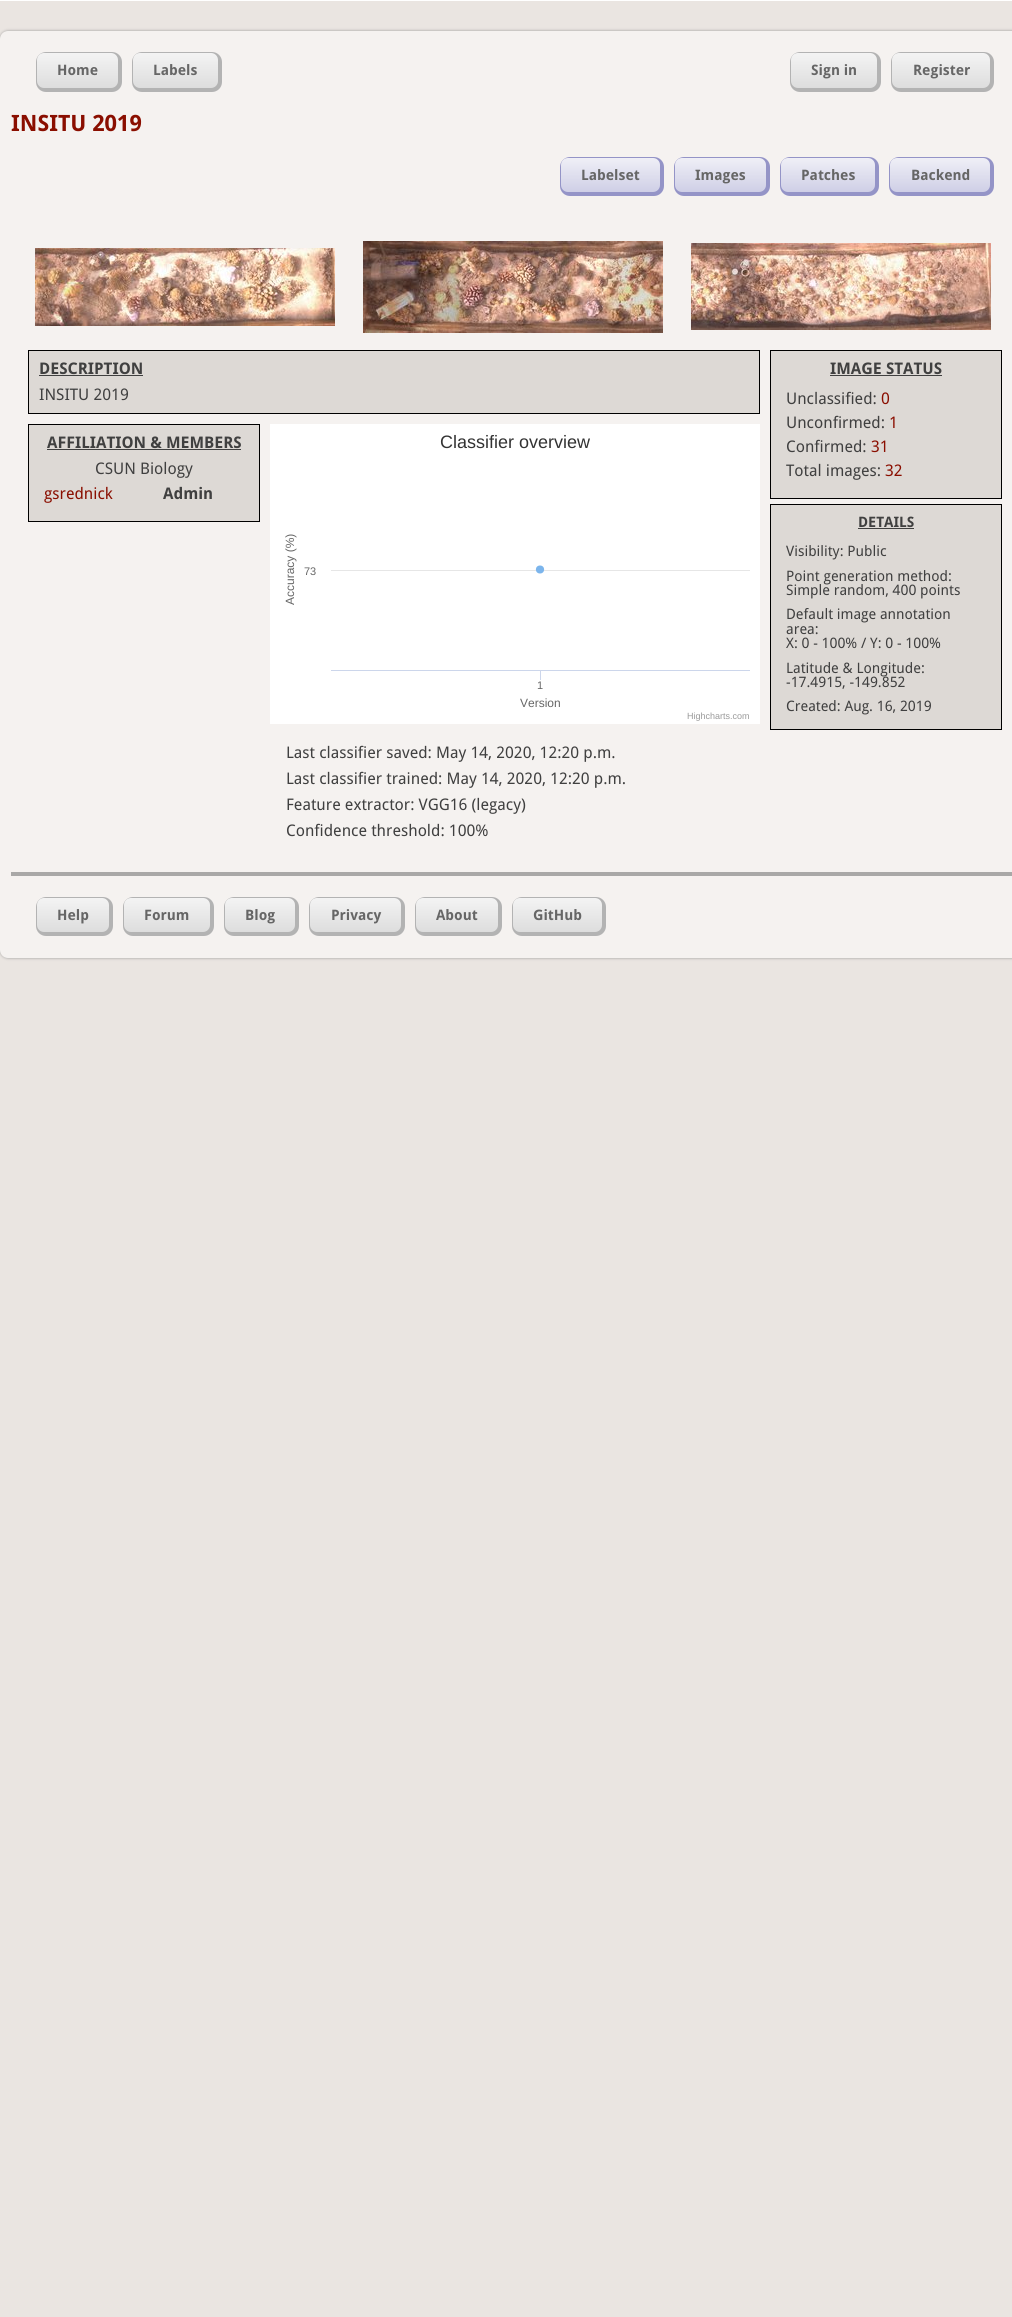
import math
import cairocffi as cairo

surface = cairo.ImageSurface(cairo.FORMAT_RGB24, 1012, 2317)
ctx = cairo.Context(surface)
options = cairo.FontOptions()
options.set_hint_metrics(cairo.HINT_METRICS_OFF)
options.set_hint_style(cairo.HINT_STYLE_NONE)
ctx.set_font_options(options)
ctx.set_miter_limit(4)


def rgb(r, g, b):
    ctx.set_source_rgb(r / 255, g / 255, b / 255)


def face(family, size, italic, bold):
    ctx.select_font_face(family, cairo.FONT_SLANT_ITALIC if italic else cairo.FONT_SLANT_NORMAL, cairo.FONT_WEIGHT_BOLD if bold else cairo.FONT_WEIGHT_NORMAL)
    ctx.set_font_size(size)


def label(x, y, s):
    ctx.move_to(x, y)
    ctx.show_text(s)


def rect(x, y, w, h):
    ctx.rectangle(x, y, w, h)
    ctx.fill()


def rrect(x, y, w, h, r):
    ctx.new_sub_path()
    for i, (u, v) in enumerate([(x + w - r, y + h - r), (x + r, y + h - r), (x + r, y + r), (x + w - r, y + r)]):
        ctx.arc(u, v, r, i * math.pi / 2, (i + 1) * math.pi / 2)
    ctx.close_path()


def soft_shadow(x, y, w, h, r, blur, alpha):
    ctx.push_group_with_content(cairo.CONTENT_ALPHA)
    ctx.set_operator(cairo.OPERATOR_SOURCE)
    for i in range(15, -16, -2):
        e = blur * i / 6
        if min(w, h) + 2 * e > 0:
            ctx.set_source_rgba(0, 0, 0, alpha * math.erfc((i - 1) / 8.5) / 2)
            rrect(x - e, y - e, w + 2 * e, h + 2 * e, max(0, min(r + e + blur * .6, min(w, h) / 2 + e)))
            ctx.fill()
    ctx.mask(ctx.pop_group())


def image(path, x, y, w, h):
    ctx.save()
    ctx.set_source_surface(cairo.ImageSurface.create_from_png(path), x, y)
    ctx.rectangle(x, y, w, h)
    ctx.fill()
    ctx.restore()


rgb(234, 229, 225)
ctx.paint()
rgb(255, 255, 255)
rect(0, 0, 1012, 1)
rgb(153, 153, 153)
soft_shadow(0, 31, 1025, 927, 8, 1.5, 1)
rgb(245, 242, 240)
rrect(0, 31, 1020, 927, 8)
ctx.fill()
rgb(179, 179, 179)
rrect(36, 52, 86, 40, 10)
ctx.fill()
gradient = cairo.LinearGradient(78, 53, 78, 88)
gradient.add_color_stop_rgba(0, 1, 1, 1, 0.85)
gradient.add_color_stop_rgba(1, 1, 1, 1, 0.55)
ctx.set_source(gradient)
rrect(37, 53, 81, 35, 7)
ctx.fill()
face('Droid Sans', 14.4, 0, 1)
rgb(102, 102, 102)
label(57, 75, 'Home')
rgb(179, 179, 179)
rrect(132, 52, 90, 40, 10)
ctx.fill()
gradient = cairo.LinearGradient(176, 53, 176, 88)
gradient.add_color_stop_rgba(0, 1, 1, 1, 0.85)
gradient.add_color_stop_rgba(1, 1, 1, 1, 0.55)
ctx.set_source(gradient)
rrect(133, 53, 85, 35, 7)
ctx.fill()
rgb(102, 102, 102)
label(153, 75, 'Labels')
rgb(179, 179, 179)
rrect(790, 52, 91, 40, 10)
ctx.fill()
gradient = cairo.LinearGradient(834, 53, 834, 88)
gradient.add_color_stop_rgba(0, 1, 1, 1, 0.85)
gradient.add_color_stop_rgba(1, 1, 1, 1, 0.55)
ctx.set_source(gradient)
rrect(791, 53, 86, 35, 7)
ctx.fill()
rgb(102, 102, 102)
label(811, 75, 'Sign in')
rgb(179, 179, 179)
rrect(891, 52, 103, 40, 10)
ctx.fill()
gradient = cairo.LinearGradient(941, 53, 941, 88)
gradient.add_color_stop_rgba(0, 1, 1, 1, 0.85)
gradient.add_color_stop_rgba(1, 1, 1, 1, 0.55)
ctx.set_source(gradient)
rrect(892, 53, 98, 35, 7)
ctx.fill()
rgb(102, 102, 102)
label(913, 75, 'Register')
face('Droid Sans', 22.5, 0, 1)
rgb(138, 14, 0)
label(11, 131, 'INSITU 2019')
rgb(148, 148, 199)
rrect(560, 157, 104, 39, 10)
ctx.fill()
gradient = cairo.LinearGradient(611, 158, 611, 192)
gradient.add_color_stop_rgba(0, 1, 1, 1, 0.85)
gradient.add_color_stop_rgba(1, 1, 1, 1, 0.55)
ctx.set_source(gradient)
rrect(561, 158, 99, 34, 7)
ctx.fill()
face('Droid Sans', 14.4, 0, 1)
rgb(102, 102, 102)
label(581, 180, 'Labelset')
rgb(148, 148, 199)
rrect(674, 157, 96, 39, 10)
ctx.fill()
gradient = cairo.LinearGradient(721, 158, 721, 192)
gradient.add_color_stop_rgba(0, 1, 1, 1, 0.85)
gradient.add_color_stop_rgba(1, 1, 1, 1, 0.55)
ctx.set_source(gradient)
rrect(675, 158, 91, 34, 7)
ctx.fill()
rgb(102, 102, 102)
label(695, 180, 'Images')
rgb(148, 148, 199)
rrect(780, 157, 99, 39, 10)
ctx.fill()
gradient = cairo.LinearGradient(828, 158, 828, 192)
gradient.add_color_stop_rgba(0, 1, 1, 1, 0.85)
gradient.add_color_stop_rgba(1, 1, 1, 1, 0.55)
ctx.set_source(gradient)
rrect(781, 158, 94, 34, 7)
ctx.fill()
rgb(102, 102, 102)
label(801, 180, 'Patches')
rgb(148, 148, 199)
rrect(889, 157, 105, 39, 10)
ctx.fill()
gradient = cairo.LinearGradient(940, 158, 940, 192)
gradient.add_color_stop_rgba(0, 1, 1, 1, 0.85)
gradient.add_color_stop_rgba(1, 1, 1, 1, 0.55)
ctx.set_source(gradient)
rrect(890, 158, 100, 34, 7)
ctx.fill()
rgb(102, 102, 102)
label(911, 180, 'Backend')
image('image0.png', 35, 248, 300, 78)
image('image1.png', 363, 241, 300, 92)
image('image2.png', 691, 243, 300, 87)
rgb(221, 217, 213)
ctx.rectangle(28.5, 350.5, 731, 63)
ctx.fill_preserve()
rgb(0, 0, 0)
ctx.set_line_width(1)
ctx.stroke()
face('Droid Sans', 16, 0, 1)
rgb(64, 64, 64)
label(39, 374, 'DESCRIPTION')
rect(39, 375, 104, 1)
face('Droid Sans', 16, 0, 0)
label(39, 400, 'INSITU 2019')
rgb(255, 255, 255)
rect(270, 424, 490, 300)
face('Liberation Sans', 18, 0, 0)
rgb(51, 51, 51)
label(440, 448, 'Classifier overview')
face('Liberation Sans', 12, 0, 0)
rgb(102, 102, 102)
ctx.save()
ctx.translate(294, 605)
ctx.rotate(-90 * math.pi / 180)
label(0, 0, 'Accuracy (%)')
ctx.restore()
face('Liberation Sans', 11, 0, 0)
label(304, 575, '73')
rgb(230, 230, 230)
rect(331, 570, 419, 1)
rgb(124, 181, 236)
ctx.new_path()
ctx.move_to(540, 565.5)
ctx.curve_to(545.5, 565.5, 545.5, 573.5, 540, 573.5)
ctx.curve_to(534.5, 573.5, 534.5, 565.5, 540, 565.5)
ctx.close_path()
ctx.fill()
rgb(102, 102, 102)
label(537, 689, '1')
rgb(204, 214, 235)
rect(540, 670, 1, 10)
rect(331, 670, 419, 1)
face('Liberation Sans', 12, 0, 0)
rgb(102, 102, 102)
label(520, 707, 'Version')
face('Liberation Sans', 9, 0, 0)
rgb(153, 153, 153)
label(687, 719, 'Highcharts.com')
face('Droid Sans', 16, 0, 0)
rgb(64, 64, 64)
label(286, 758, 'Last classifier saved: May 14, 2020, 12:20 p.m.')
label(286, 784, 'Last classifier trained: May 14, 2020, 12:20 p.m.')
label(286, 810, 'Feature extractor: VGG16 (legacy)')
label(286, 836, 'Confidence threshold: 100%')
rgb(221, 217, 213)
ctx.rectangle(770.5, 350.5, 231, 148)
ctx.fill_preserve()
rgb(0, 0, 0)
ctx.stroke()
face('Droid Sans', 16, 0, 1)
rgb(64, 64, 64)
label(830, 374, 'IMAGE STATUS')
rect(830, 375, 112, 1)
face('Droid Sans', 16, 0, 0)
label(786, 404, 'Unclassified:')
rgb(138, 14, 0)
label(881, 404, '0')
rgb(64, 64, 64)
label(786, 428, 'Unconfirmed:')
rgb(138, 14, 0)
label(889, 428, '1')
rgb(64, 64, 64)
label(786, 452, 'Confirmed:')
rgb(138, 14, 0)
label(871, 452, '31')
rgb(64, 64, 64)
label(786, 476, 'Total images:')
rgb(138, 14, 0)
label(885, 476, '32')
rgb(221, 217, 213)
ctx.rectangle(770.5, 504.5, 231, 225)
ctx.fill_preserve()
rgb(0, 0, 0)
ctx.stroke()
face('Droid Sans', 14.4, 0, 1)
rgb(64, 64, 64)
label(858, 527, 'DETAILS')
rect(858, 528, 56, 1)
face('Droid Sans', 14.4, 0, 0)
label(786, 556, 'Visibility: Public')
label(786, 581, 'Point generation method:')
label(786, 595, 'Simple random, 400 points')
label(786, 619, 'Default image annotation')
label(786, 634, 'area:')
label(786, 648, 'X: 0 - 100% / Y: 0 - 100%')
label(786, 673, 'Latitude & Longitude:')
label(786, 687, '-17.4915, -149.852')
label(786, 711, 'Created: Aug. 16, 2019')
rgb(221, 217, 213)
ctx.rectangle(28.5, 424.5, 231, 97)
ctx.fill_preserve()
rgb(0, 0, 0)
ctx.stroke()
face('Droid Sans', 16, 0, 1)
rgb(64, 64, 64)
label(47, 448, 'AFFILIATION & MEMBERS')
rect(47, 449, 194, 1)
face('Droid Sans', 16, 0, 0)
label(95, 474, 'CSUN Biology')
rgb(138, 14, 0)
label(44, 499, 'gsrednick')
face('Droid Sans', 16, 0, 1)
rgb(64, 64, 64)
label(163, 499, 'Admin')
rgb(169, 168, 167)
rect(11, 872, 1001, 4)
rgb(179, 179, 179)
rrect(36, 897, 77, 39, 10)
ctx.fill()
gradient = cairo.LinearGradient(73, 898, 73, 932)
gradient.add_color_stop_rgba(0, 1, 1, 1, 0.85)
gradient.add_color_stop_rgba(1, 1, 1, 1, 0.55)
ctx.set_source(gradient)
rrect(37, 898, 72, 34, 7)
ctx.fill()
face('Droid Sans', 14.4, 0, 1)
rgb(102, 102, 102)
label(57, 920, 'Help')
rgb(179, 179, 179)
rrect(123, 897, 91, 39, 10)
ctx.fill()
gradient = cairo.LinearGradient(167, 898, 167, 932)
gradient.add_color_stop_rgba(0, 1, 1, 1, 0.85)
gradient.add_color_stop_rgba(1, 1, 1, 1, 0.55)
ctx.set_source(gradient)
rrect(124, 898, 86, 34, 7)
ctx.fill()
rgb(102, 102, 102)
label(144, 920, 'Forum')
rgb(179, 179, 179)
rrect(224, 897, 75, 39, 10)
ctx.fill()
gradient = cairo.LinearGradient(260, 898, 260, 932)
gradient.add_color_stop_rgba(0, 1, 1, 1, 0.85)
gradient.add_color_stop_rgba(1, 1, 1, 1, 0.55)
ctx.set_source(gradient)
rrect(225, 898, 70, 34, 7)
ctx.fill()
rgb(102, 102, 102)
label(245, 920, 'Blog')
rgb(179, 179, 179)
rrect(309, 897, 96, 39, 10)
ctx.fill()
gradient = cairo.LinearGradient(356, 898, 356, 932)
gradient.add_color_stop_rgba(0, 1, 1, 1, 0.85)
gradient.add_color_stop_rgba(1, 1, 1, 1, 0.55)
ctx.set_source(gradient)
rrect(310, 898, 91, 34, 7)
ctx.fill()
rgb(102, 102, 102)
label(331, 920, 'Privacy')
rgb(179, 179, 179)
rrect(415, 897, 87, 39, 10)
ctx.fill()
gradient = cairo.LinearGradient(457, 898, 457, 932)
gradient.add_color_stop_rgba(0, 1, 1, 1, 0.85)
gradient.add_color_stop_rgba(1, 1, 1, 1, 0.55)
ctx.set_source(gradient)
rrect(416, 898, 82, 34, 7)
ctx.fill()
rgb(102, 102, 102)
label(436, 920, 'About')
rgb(179, 179, 179)
rrect(512, 897, 94, 39, 10)
ctx.fill()
gradient = cairo.LinearGradient(558, 898, 558, 932)
gradient.add_color_stop_rgba(0, 1, 1, 1, 0.85)
gradient.add_color_stop_rgba(1, 1, 1, 1, 0.55)
ctx.set_source(gradient)
rrect(513, 898, 89, 34, 7)
ctx.fill()
rgb(102, 102, 102)
label(533, 920, 'GitHub')
surface.write_to_png('render.png')
